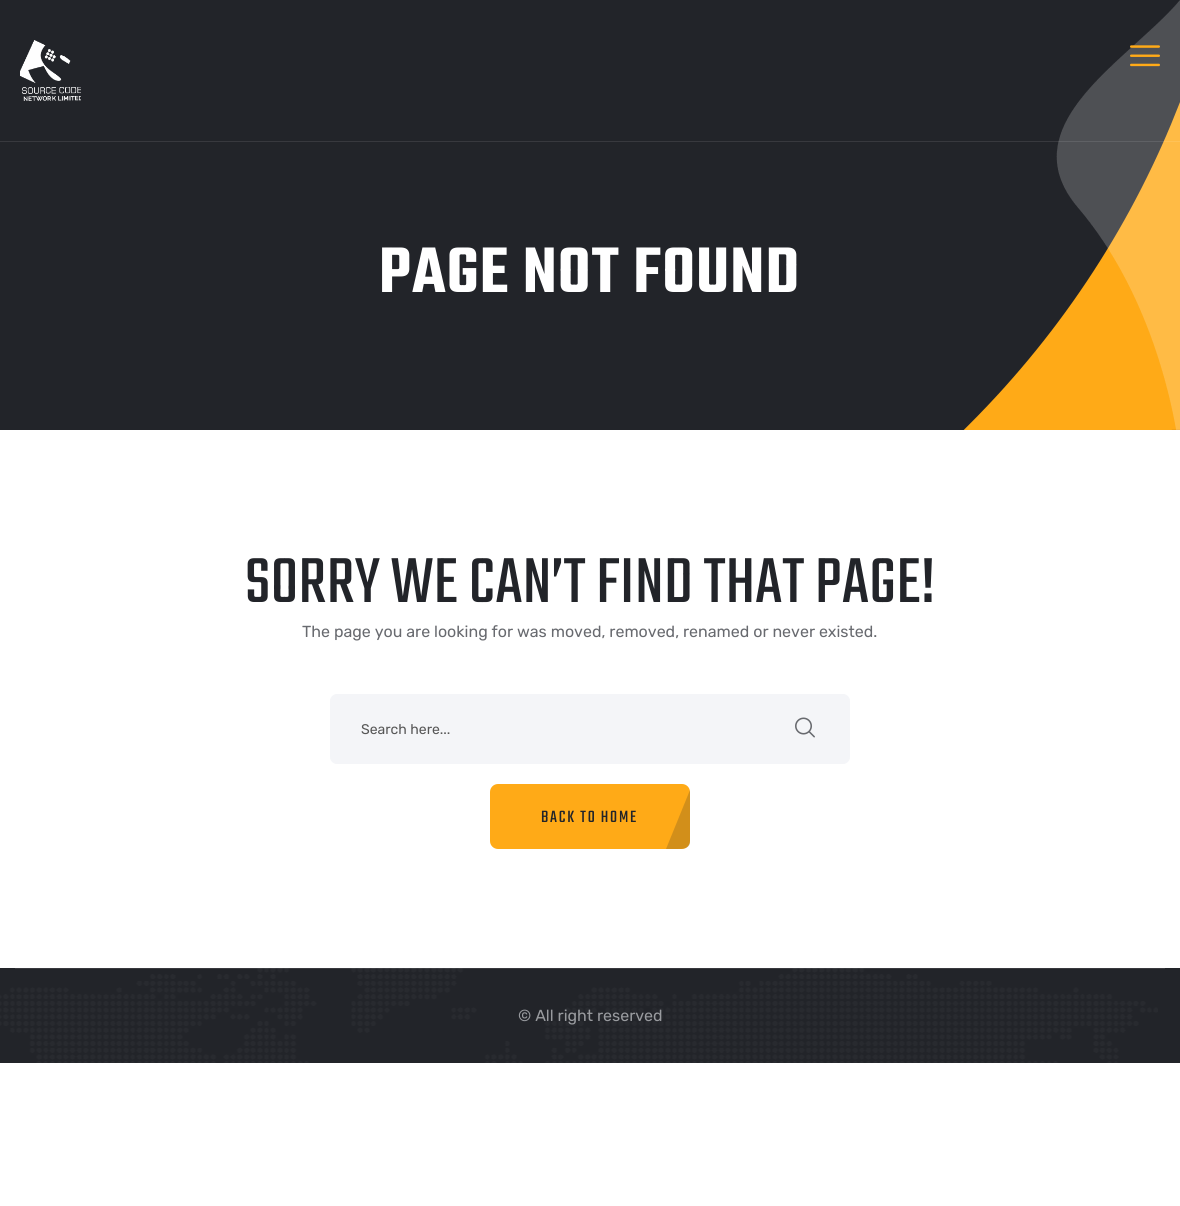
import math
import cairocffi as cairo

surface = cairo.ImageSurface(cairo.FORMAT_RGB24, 1180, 1206)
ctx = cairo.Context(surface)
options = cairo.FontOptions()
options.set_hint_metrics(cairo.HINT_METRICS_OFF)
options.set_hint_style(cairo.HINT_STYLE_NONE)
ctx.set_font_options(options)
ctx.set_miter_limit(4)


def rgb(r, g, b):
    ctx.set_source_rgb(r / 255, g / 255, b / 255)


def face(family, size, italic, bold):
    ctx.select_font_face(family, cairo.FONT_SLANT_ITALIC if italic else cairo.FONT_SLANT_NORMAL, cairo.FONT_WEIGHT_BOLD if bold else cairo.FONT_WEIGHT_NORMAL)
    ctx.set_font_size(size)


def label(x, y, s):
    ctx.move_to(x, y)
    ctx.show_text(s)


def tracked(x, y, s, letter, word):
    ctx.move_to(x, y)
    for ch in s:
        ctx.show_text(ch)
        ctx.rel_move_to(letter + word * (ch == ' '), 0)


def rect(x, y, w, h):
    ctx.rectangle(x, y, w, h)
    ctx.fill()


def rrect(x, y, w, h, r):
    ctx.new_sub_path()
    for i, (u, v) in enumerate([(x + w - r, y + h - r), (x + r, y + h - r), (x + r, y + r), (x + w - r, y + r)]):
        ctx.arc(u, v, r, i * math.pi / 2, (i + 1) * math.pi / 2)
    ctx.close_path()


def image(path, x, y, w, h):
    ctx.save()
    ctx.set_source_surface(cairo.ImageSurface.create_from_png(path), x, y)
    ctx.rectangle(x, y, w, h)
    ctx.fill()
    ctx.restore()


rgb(255, 255, 255)
ctx.paint()
rgb(34, 36, 41)
rect(0, 0, 1180, 430)
image('image3.png', 963, 102, 217, 328)
image('image2.png', 1056, 0, 124, 430)
ctx.set_source_rgba(1, 1, 1, 0.1)
rect(0, 141, 1180, 1)
image('image0.png', 20, 40, 61, 61)
image('image1.png', 1130, 45, 30, 22)
face('Teko SemiBold', 70, 0, 0)
rgb(255, 255, 255)
tracked(379, 292, 'PAGE NOT FOUND', 1, 0)
face('Teko', 70, 0, 0)
rgb(34, 36, 41)
tracked(245, 602, 'SORRY WE CAN’T FIND THAT PAGE!', 0.35, 0)
face('Rubik', 16, 0, 0)
rgb(104, 106, 111)
label(302, 637, 'The page you are looking for was moved, removed, renamed or never existed.')
rgb(244, 245, 248)
rrect(330.5, 694.5, 519, 69, 6.5)
ctx.fill_preserve()
ctx.set_line_width(1)
ctx.stroke()
face('Rubik', 14, 0, 0)
rgb(87, 87, 87)
label(361, 734, 'Search here...')
image('image4.png', 795, 717, 20, 21)
rgb(255, 170, 23)
rrect(490, 784, 200, 65, 8)
ctx.fill()
face('Teko', 18, 0, 0)
rgb(34, 36, 41)
tracked(541, 822, 'BACK TO HOME', 1.75, 0)
ctx.set_source_rgba(0.133, 0.141, 0.161, 0.2)
ctx.new_path()
ctx.move_to(666, 849)
ctx.line_to(677, 849)
ctx.curve_to(682, 849, 689, 849, 690, 843)
ctx.line_to(690, 790)
ctx.close_path()
ctx.fill()
rgb(34, 36, 41)
rect(0, 968, 1180, 95)
image('image5.png', 0, 968, 1158, 95)
ctx.set_source_rgba(1, 1, 1, 0.1)
rect(15, 968, 1150, 1)
face('Rubik', 16, 0, 0)
rgb(153, 155, 159)
label(518, 1021, '© All right reserved')
surface.write_to_png('render.png')
